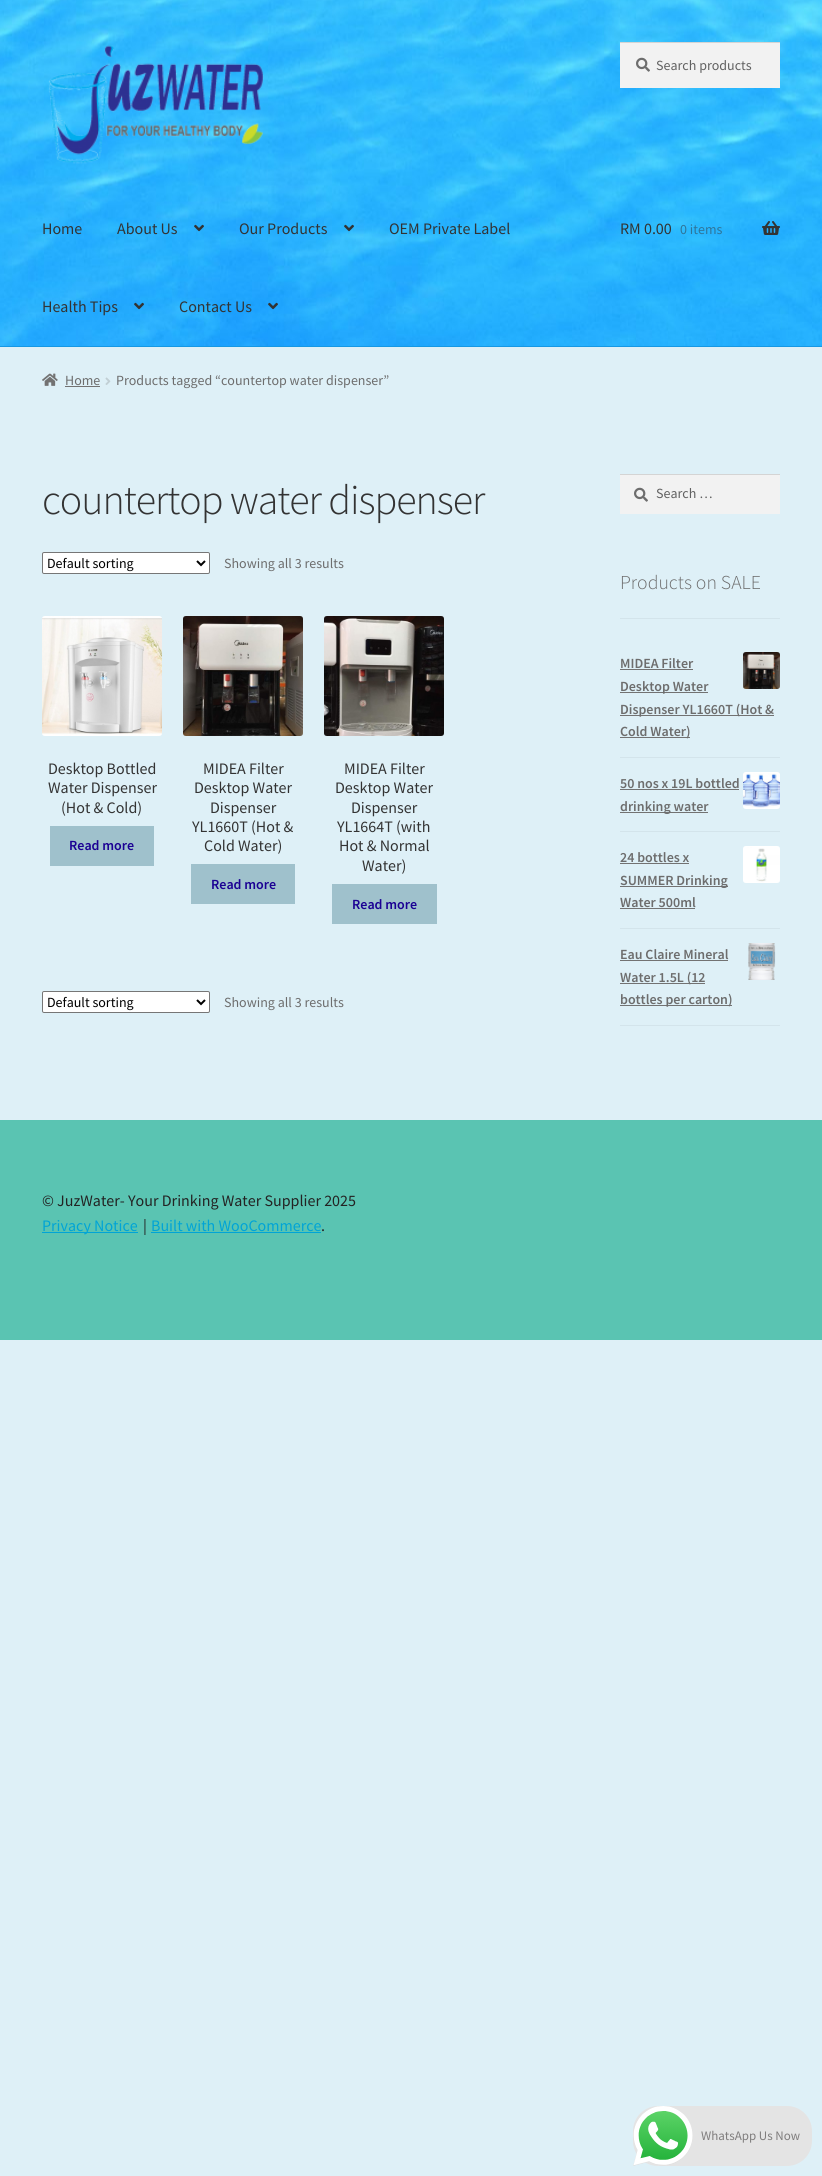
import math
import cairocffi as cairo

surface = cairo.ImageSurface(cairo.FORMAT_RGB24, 822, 2176)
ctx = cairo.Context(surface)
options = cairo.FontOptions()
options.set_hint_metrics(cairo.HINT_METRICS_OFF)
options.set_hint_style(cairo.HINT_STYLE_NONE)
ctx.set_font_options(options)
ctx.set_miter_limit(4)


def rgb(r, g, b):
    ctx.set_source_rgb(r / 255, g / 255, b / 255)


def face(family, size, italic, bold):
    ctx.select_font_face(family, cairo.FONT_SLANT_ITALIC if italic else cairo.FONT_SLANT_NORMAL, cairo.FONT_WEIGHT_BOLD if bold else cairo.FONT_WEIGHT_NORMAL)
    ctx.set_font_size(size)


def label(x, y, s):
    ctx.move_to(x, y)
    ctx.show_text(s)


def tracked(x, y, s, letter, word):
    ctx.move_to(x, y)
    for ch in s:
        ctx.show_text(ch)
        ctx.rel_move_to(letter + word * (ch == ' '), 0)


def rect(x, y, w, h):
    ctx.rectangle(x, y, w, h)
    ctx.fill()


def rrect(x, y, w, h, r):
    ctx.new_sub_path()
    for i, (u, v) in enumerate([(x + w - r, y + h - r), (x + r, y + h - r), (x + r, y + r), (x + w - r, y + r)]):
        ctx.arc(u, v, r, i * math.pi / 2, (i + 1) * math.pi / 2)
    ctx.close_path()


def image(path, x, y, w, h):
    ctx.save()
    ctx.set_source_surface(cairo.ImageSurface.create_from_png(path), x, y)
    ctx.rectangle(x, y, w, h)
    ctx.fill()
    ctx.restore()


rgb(222, 240, 247)
ctx.paint()
image('image0.png', 0, 0, 822, 346)
rgb(23, 152, 227)
rect(0, 346, 822, 1)
image('image1.png', 48, 45, 216, 119)
rgb(242, 242, 242)
rect(620, 43, 160, 45)
image('image2.png', 636, 57, 14, 15)
rgb(212, 212, 212)
rect(620, 42, 160, 1)
face('Source Sans Pro', 14, 0, 0)
rgb(97, 97, 97)
label(656, 70, 'Search products')
face('Source Sans Pro', 16, 0, 0)
rgb(51, 51, 51)
label(42, 234, 'Home')
label(117, 234, 'About Us')
image('image3.png', 194, 224, 10, 8)
label(239, 234, 'Our Products')
image('image4.png', 344, 224, 10, 8)
label(389, 234, 'OEM Private Label')
label(42, 312, 'Health Tips')
image('image5.png', 134, 302, 10, 8)
label(179, 312, 'Contact Us')
image('image6.png', 268, 302, 10, 8)
label(620, 234, 'RM 0.00')
face('Source Sans Pro', 14, 0, 0)
rgb(47, 117, 153)
label(680, 234, '0 items')
image('image7.png', 762, 221, 18, 14)
image('image8.png', 42, 373, 16, 13)
rgb(109, 109, 109)
label(65, 385, 'Home')
rgb(114, 114, 114)
rect(65, 386, 35, 1)
image('image9.png', 105, 377, 6, 8)
rgb(109, 109, 109)
label(116, 385, 'Products tagged “countertop water dispenser”')
face('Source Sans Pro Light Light', 41.9, 0, 0)
rgb(51, 51, 51)
tracked(42, 514, 'countertop water dispenser', -1, 0)
rgb(255, 255, 255)
rrect(42.5, 552.5, 167, 21, 1.5)
ctx.fill_preserve()
rgb(118, 118, 118)
ctx.set_line_width(1)
ctx.stroke()
ctx.new_path()
ctx.move_to(197, 561)
ctx.line_to(201, 565)
ctx.line_to(205, 561)
rgb(0, 0, 0)
ctx.set_line_width(2)
ctx.stroke()
face('Source Sans Pro', 14, 0, 0)
label(47, 568, 'Default sorting')
rgb(109, 109, 109)
label(224, 568, 'Showing all 3 results')
image('image10.png', 42, 616, 120, 120)
face('Source Sans Pro', 16, 0, 0)
rgb(51, 51, 51)
label(48, 774, 'Desktop Bottled')
label(48, 793, 'Water Dispenser')
label(61, 813, '(Hot & Cold)')
rgb(159, 193, 204)
rect(50, 826, 104, 40)
face('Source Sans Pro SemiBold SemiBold', 14, 0, 0)
rgb(27, 0, 147)
label(69, 850, 'Read more')
image('image11.png', 183, 616, 120, 120)
face('Source Sans Pro', 16, 0, 0)
rgb(51, 51, 51)
label(203, 774, 'MIDEA Filter')
label(194, 793, 'Desktop Water')
label(210, 813, 'Dispenser')
label(192, 832, 'YL1660T (Hot &')
label(204, 851, 'Cold Water)')
rgb(159, 193, 204)
rect(191, 864, 104, 40)
face('Source Sans Pro SemiBold SemiBold', 14, 0, 0)
rgb(27, 0, 147)
label(211, 889, 'Read more')
image('image12.png', 324, 616, 120, 120)
face('Source Sans Pro', 16, 0, 0)
rgb(51, 51, 51)
label(344, 774, 'MIDEA Filter')
label(335, 793, 'Desktop Water')
label(351, 813, 'Dispenser')
label(337, 832, 'YL1664T (with')
label(339, 851, 'Hot & Normal')
label(362, 871, 'Water)')
rgb(159, 193, 204)
rect(332, 884, 105, 40)
face('Source Sans Pro SemiBold SemiBold', 14, 0, 0)
rgb(27, 0, 147)
label(352, 909, 'Read more')
rgb(255, 255, 255)
rrect(42.5, 991.5, 167, 21, 1.5)
ctx.fill_preserve()
rgb(118, 118, 118)
ctx.set_line_width(1)
ctx.stroke()
ctx.new_path()
ctx.move_to(197, 1000)
ctx.line_to(201, 1004)
ctx.line_to(205, 1000)
rgb(0, 0, 0)
ctx.set_line_width(2)
ctx.stroke()
face('Source Sans Pro', 14, 0, 0)
label(47, 1007, 'Default sorting')
rgb(109, 109, 109)
label(224, 1007, 'Showing all 3 results')
rgb(242, 242, 242)
rect(620, 475, 160, 39)
image('image2.png', 634, 487, 14, 15)
rgb(212, 212, 212)
rect(620, 474, 160, 1)
rgb(97, 97, 97)
label(656, 498, 'Search …')
rgb(211, 228, 235)
rect(620, 618, 160, 1)
face('Source Sans Pro Light Light', 19.75, 0, 0)
rgb(109, 109, 109)
label(620, 589, 'Products on SALE')
rgb(211, 228, 235)
rect(620, 757, 160, 1)
face('Source Sans Pro SemiBold SemiBold', 14, 0, 0)
rgb(109, 109, 109)
label(620, 668, 'MIDEA Filter')
rgb(114, 114, 114)
rect(620, 669, 73, 1)
image('image13.png', 743, 652, 37, 37)
rect(620, 692, 88, 1)
rgb(109, 109, 109)
label(620, 691, 'Desktop Water')
rgb(114, 114, 114)
rect(620, 715, 154, 1)
rgb(109, 109, 109)
label(620, 714, 'Dispenser YL1660T (Hot &')
rgb(114, 114, 114)
rect(620, 737, 70, 1)
rgb(109, 109, 109)
label(620, 736, 'Cold Water)')
rgb(211, 228, 235)
rect(620, 831, 160, 1)
rgb(109, 109, 109)
label(620, 788, '50 nos x 19L bottled')
rgb(114, 114, 114)
rect(620, 789, 119, 1)
image('image14.png', 743, 772, 37, 37)
rect(620, 812, 88, 1)
rgb(109, 109, 109)
label(620, 811, 'drinking water')
rgb(211, 228, 235)
rect(620, 928, 160, 1)
rgb(109, 109, 109)
label(620, 862, '24 bottles x')
rgb(114, 114, 114)
rect(620, 863, 69, 1)
image('image15.png', 743, 846, 37, 37)
rect(620, 886, 108, 1)
rgb(109, 109, 109)
label(620, 885, 'SUMMER Drinking')
label(620, 907, 'Water 500ml')
rgb(114, 114, 114)
rect(620, 908, 75, 1)
rgb(211, 228, 235)
rect(620, 1025, 160, 1)
rgb(109, 109, 109)
label(620, 959, 'Eau Claire Mineral')
rgb(114, 114, 114)
rect(620, 960, 108, 1)
image('image16.png', 748, 943, 28, 37)
rect(620, 983, 85, 1)
rgb(109, 109, 109)
label(620, 982, 'Water 1.5L (12')
rgb(114, 114, 114)
rect(620, 1005, 112, 1)
rgb(109, 109, 109)
label(620, 1004, 'bottles per carton)')
rgb(90, 196, 178)
rect(0, 1120, 822, 220)
face('Source Sans Pro', 16, 0, 0)
rgb(35, 35, 35)
label(42, 1206, '© JuzWater- Your Drinking Water Supplier 2025')
rgb(0, 164, 214)
rect(42, 1232, 96, 1)
label(42, 1231, 'Privacy Notice')
rgb(35, 35, 35)
label(143, 1231, '|')
rgb(0, 164, 214)
label(151, 1231, 'Built with WooCommerce')
rect(151, 1232, 170, 1)
rgb(35, 35, 35)
label(321, 1231, '.')
rgb(228, 228, 228)
rrect(633, 2106, 179, 60, 25)
ctx.fill()
image('image17.png', 633, 2106, 60, 60)
face('Source Sans Pro', 13, 0, 0)
rgb(127, 125, 125)
label(701, 2140, 'WhatsApp Us Now')
surface.write_to_png('render.png')
